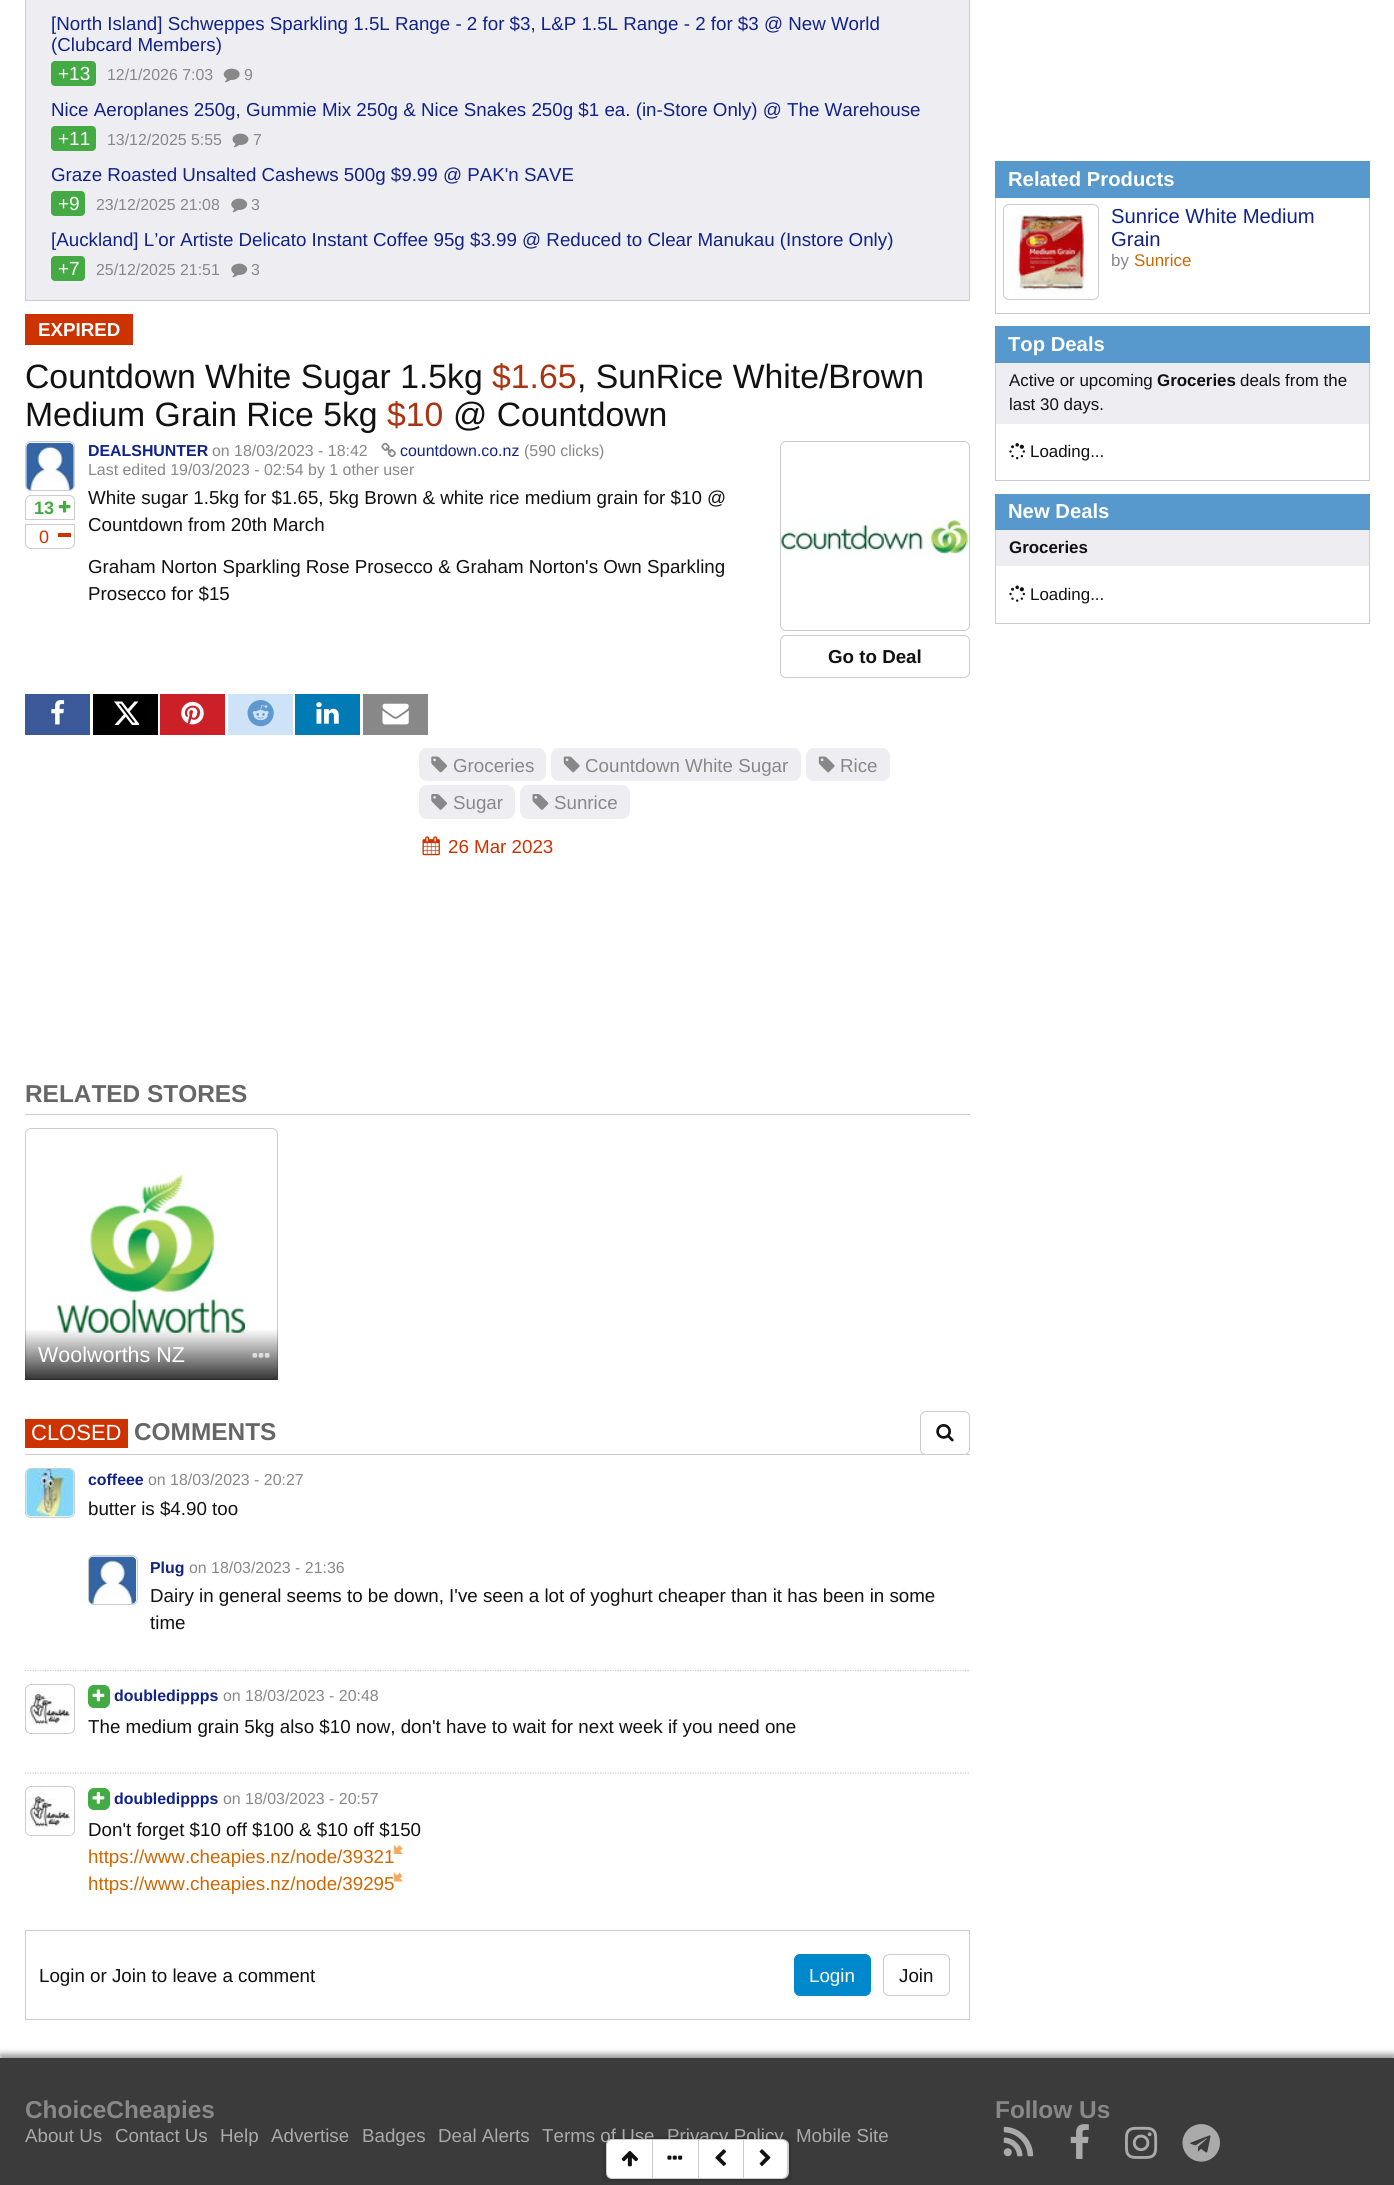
import math
import cairocffi as cairo

surface = cairo.ImageSurface(cairo.FORMAT_RGB24, 1394, 2185)
ctx = cairo.Context(surface)
options = cairo.FontOptions()
options.set_hint_metrics(cairo.HINT_METRICS_OFF)
options.set_hint_style(cairo.HINT_STYLE_NONE)
ctx.set_font_options(options)
ctx.set_miter_limit(4)


def rgb(r, g, b):
    ctx.set_source_rgb(r / 255, g / 255, b / 255)


def face(family, size, italic, bold):
    ctx.select_font_face(family, cairo.FONT_SLANT_ITALIC if italic else cairo.FONT_SLANT_NORMAL, cairo.FONT_WEIGHT_BOLD if bold else cairo.FONT_WEIGHT_NORMAL)
    ctx.set_font_size(size)


def label(x, y, s):
    ctx.move_to(x, y)
    ctx.show_text(s)


def rect(x, y, w, h):
    ctx.rectangle(x, y, w, h)
    ctx.fill()


def rrect(x, y, w, h, r):
    ctx.new_sub_path()
    for i, (u, v) in enumerate([(x + w - r, y + h - r), (x + r, y + h - r), (x + r, y + r), (x + w - r, y + r)]):
        ctx.arc(u, v, r, i * math.pi / 2, (i + 1) * math.pi / 2)
    ctx.close_path()


def soft_shadow(x, y, w, h, r, blur, alpha):
    ctx.push_group_with_content(cairo.CONTENT_ALPHA)
    ctx.set_operator(cairo.OPERATOR_SOURCE)
    for i in range(15, -16, -2):
        e = blur * i / 6
        if min(w, h) + 2 * e > 0:
            ctx.set_source_rgba(0, 0, 0, alpha * math.erfc((i - 1) / 8.5) / 2)
            rrect(x - e, y - e, w + 2 * e, h + 2 * e, max(0, min(r + e + blur * .6, min(w, h) / 2 + e)))
            ctx.fill()
    ctx.mask(ctx.pop_group())


def image(path, x, y, w, h):
    ctx.save()
    ctx.set_source_surface(cairo.ImageSurface.create_from_png(path), x, y)
    ctx.rectangle(x, y, w, h)
    ctx.fill()
    ctx.restore()


rgb(255, 255, 255)
ctx.paint()
rgb(238, 238, 242)
ctx.rectangle(25.5, -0.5, 944, 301)
ctx.fill_preserve()
rgb(204, 204, 204)
ctx.set_line_width(1)
ctx.stroke()
face('Liberation Sans', 18.75, 0, 0)
rgb(17, 34, 136)
label(51, 30, '[North Island] Schweppes Sparkling 1.5L Range - 2 for $3, L&P 1.5L Range - 2 for $3 @ New World')
label(51, 51, '(Clubcard Members)')
rgb(68, 170, 68)
rrect(51, 61, 45, 25, 4)
ctx.fill()
face('Liberation Sans', 19, 0, 0)
rgb(255, 255, 255)
label(58, 80, '+13')
face('Liberation Sans', 15.9, 0, 0)
rgb(136, 136, 136)
label(107, 80, '12/1/2026 7:03')
image('image0.png', 223, 68, 17, 15)
label(244, 80, '9')
face('Liberation Sans', 18.75, 0, 0)
rgb(17, 34, 136)
label(51, 116, 'Nice Aeroplanes 250g, Gummie Mix 250g & Nice Snakes 250g $1 ea. (in-Store Only) @ The Warehouse')
rgb(68, 170, 68)
rrect(51, 126, 45, 25, 4)
ctx.fill()
face('Liberation Sans', 19, 0, 0)
rgb(255, 255, 255)
label(58, 145, '+11')
face('Liberation Sans', 15.9, 0, 0)
rgb(136, 136, 136)
label(107, 145, '13/12/2025 5:55')
image('image1.png', 232, 133, 17, 15)
label(253, 145, '7')
face('Liberation Sans', 18.75, 0, 0)
rgb(17, 34, 136)
label(51, 181, 'Graze Roasted Unsalted Cashews 500g $9.99 @ PAK\'n SAVE')
rgb(68, 170, 68)
rrect(51, 191, 34, 25, 4)
ctx.fill()
face('Liberation Sans', 19, 0, 0)
rgb(255, 255, 255)
label(58, 210, '+9')
face('Liberation Sans', 15.9, 0, 0)
rgb(136, 136, 136)
label(96, 210, '23/12/2025 21:08')
image('image2.png', 231, 198, 17, 15)
label(251, 210, '3')
face('Liberation Sans', 18.75, 0, 0)
rgb(17, 34, 136)
label(51, 246, '[Auckland] L’or Artiste Delicato Instant Coffee 95g $3.99 @ Reduced to Clear Manukau (Instore Only)')
rgb(68, 170, 68)
rrect(51, 256, 34, 25, 4)
ctx.fill()
face('Liberation Sans', 19, 0, 0)
rgb(255, 255, 255)
label(58, 275, '+7')
face('Liberation Sans', 15.9, 0, 0)
rgb(136, 136, 136)
label(96, 275, '25/12/2025 21:51')
image('image2.png', 231, 263, 17, 15)
label(251, 275, '3')
rgb(204, 51, 0)
rect(25, 314, 108, 31)
face('Liberation Sans', 18.75, 0, 1)
rgb(255, 255, 255)
label(38, 336, 'EXPIRED')
face('Liberation Sans', 33.75, 0, 0)
rgb(17, 17, 17)
label(25, 388, 'Countdown White Sugar 1.5kg')
rgb(170, 51, 17)
label(492, 388, '$1.65')
rgb(17, 17, 17)
label(577, 388, ', SunRice White/Brown')
label(25, 426, 'Medium Grain Rice 5kg')
rgb(170, 51, 17)
label(387, 426, '$10')
rgb(17, 17, 17)
label(453, 426, '@ Countdown')
rrect(25.5, 441.5, 49, 49, 5.5)
rgb(204, 204, 204)
ctx.stroke()
image('image3.png', 26, 442, 48, 48)
ctx.new_path()
ctx.move_to(31, 495.5)
ctx.line_to(69, 495.5)
ctx.curve_to(72, 495.5, 74.5, 498, 74.5, 501)
ctx.line_to(74.5, 519.5)
ctx.line_to(25.5, 519.5)
ctx.line_to(25.5, 501)
ctx.curve_to(25.5, 498, 28, 495.5, 31, 495.5)
ctx.close_path()
ctx.stroke()
face('Liberation Sans', 18, 0, 1)
rgb(68, 170, 68)
label(34, 514, '13')
image('image4.png', 58, 500, 13, 13)
ctx.new_path()
ctx.move_to(25.5, 524.5)
ctx.line_to(74.5, 524.5)
ctx.line_to(74.5, 543)
ctx.curve_to(74.5, 546, 72, 548.5, 69, 548.5)
ctx.line_to(31, 548.5)
ctx.curve_to(28, 548.5, 25.5, 546, 25.5, 543)
ctx.close_path()
rgb(204, 204, 204)
ctx.stroke()
face('Liberation Sans', 18, 0, 0)
rgb(204, 51, 0)
label(39, 543, '0')
rect(58, 533, 13, 4)
face('Liberation Sans', 15.9, 0, 1)
rgb(17, 34, 136)
label(88, 456, 'DEALSHUNTER')
face('Liberation Sans', 15.9, 0, 0)
rgb(136, 136, 136)
label(212, 456, 'on 18/03/2023 - 18:42')
image('image5.png', 381, 442, 15, 16)
rgb(17, 34, 136)
label(400, 456, 'countdown.co.nz')
rgb(136, 136, 136)
label(524, 456, '(590 clicks)')
label(88, 475, 'Last edited 19/03/2023 - 02:54 by 1 other user')
face('Liberation Sans', 18.75, 0, 0)
rgb(17, 17, 17)
label(88, 504, 'White sugar 1.5kg for $1.65, 5kg Brown & white rice medium grain for $10 @')
label(88, 531, 'Countdown from 20th March')
label(88, 573, 'Graham Norton Sparkling Rose Prosecco & Graham Norton\'s Own Sparkling')
label(88, 600, 'Prosecco for $15')
rrect(780.5, 441.5, 189, 189, 5.5)
rgb(204, 204, 204)
ctx.stroke()
image('image6.png', 781, 519, 188, 35)
rrect(780.5, 635.5, 189, 42, 5.5)
ctx.stroke()
face('Liberation Sans', 18.75, 0, 1)
rgb(17, 17, 17)
label(828, 663, 'Go to Deal')
rgb(59, 89, 152)
rect(25, 694, 65, 41)
image('image7.png', 51, 700, 14, 25)
rgb(0, 0, 0)
rect(93, 694, 65, 41)
image('image8.png', 114, 701, 25, 24)
rgb(203, 32, 40)
rect(160, 694, 65, 41)
image('image9.png', 181, 701, 23, 24)
rgb(206, 227, 248)
rect(228, 694, 65, 41)
image('image10.png', 247, 700, 27, 27)
rgb(0, 123, 182)
rect(295, 694, 65, 41)
image('image11.png', 316, 702, 23, 22)
rgb(136, 136, 136)
rect(363, 694, 65, 41)
image('image12.png', 382, 703, 27, 22)
rgb(238, 238, 242)
rrect(419, 748, 127, 33, 8)
ctx.fill()
image('image13.png', 431, 756, 16, 17)
face('Liberation Sans', 18.75, 0, 0)
rgb(136, 136, 136)
label(453, 772, 'Groceries')
rgb(238, 238, 242)
rrect(551, 748, 250, 33, 8)
ctx.fill()
image('image14.png', 563, 756, 17, 17)
rgb(136, 136, 136)
label(585, 772, 'Countdown White Sugar')
rgb(238, 238, 242)
rrect(806, 748, 84, 33, 8)
ctx.fill()
image('image14.png', 818, 756, 17, 17)
rgb(136, 136, 136)
label(840, 772, 'Rice')
rgb(238, 238, 242)
rrect(419, 785, 96, 34, 8)
ctx.fill()
image('image15.png', 431, 794, 17, 16)
rgb(136, 136, 136)
label(453, 809, 'Sugar')
rgb(238, 238, 242)
rrect(520, 785, 110, 34, 8)
ctx.fill()
image('image16.png', 532, 794, 17, 16)
rgb(136, 136, 136)
label(554, 809, 'Sunrice')
image('image17.png', 422, 836, 18, 20)
rgb(204, 51, 0)
label(448, 853, '26 Mar 2023')
rgb(204, 204, 204)
rect(25, 1114, 945, 1)
face('Liberation Sans', 24.4, 0, 1)
rgb(102, 102, 102)
label(25, 1102, 'RELATED STORES')
rrect(25.5, 1128.5, 252, 251, 5.5)
rgb(204, 204, 204)
ctx.stroke()
image('image18.png', 57, 1175, 188, 158)
gradient = cairo.LinearGradient(151, 1380, 151, 1329)
gradient.add_color_stop_rgba(0, 0, 0, 0, 0.8)
gradient.add_color_stop_rgba(1, 0, 0, 0, 0)
ctx.set_source(gradient)
rect(25, 1330, 253, 50)
face('Liberation Sans', 21.5, 0, 0)
rgb(255, 255, 255)
label(38, 1362, 'Woolworths NZ')
image('image19.png', 252, 1353, 18, 5)
rgb(204, 204, 204)
rect(25, 1454, 945, 1)
rgb(204, 51, 0)
rect(25, 1419, 103, 29)
face('Liberation Sans', 22, 0, 0)
rgb(255, 255, 255)
label(31, 1440, 'CLOSED')
face('Liberation Sans', 24.4, 0, 1)
rgb(102, 102, 102)
label(134, 1440, 'COMMENTS')
rgb(255, 255, 255)
rrect(920.5, 1411.5, 49, 43, 5.5)
ctx.fill_preserve()
rgb(204, 204, 204)
ctx.stroke()
image('image20.png', 936, 1424, 18, 18)
ctx.new_path()
ctx.move_to(25, 1670.5)
ctx.line_to(970, 1670.5)
ctx.set_line_width(1.2)
ctx.set_dash([1.25, 1.25])
ctx.stroke()
rrect(25.5, 1468.5, 49, 49, 5.5)
ctx.set_line_width(1)
ctx.set_dash([])
ctx.stroke()
image('image21.png', 26, 1469, 48, 48)
face('Liberation Sans', 15.9, 0, 1)
rgb(17, 34, 136)
label(88, 1485, 'coffeee')
face('Liberation Sans', 15.9, 0, 0)
rgb(136, 136, 136)
label(148, 1485, 'on 18/03/2023 - 20:27')
face('Liberation Sans', 18.75, 0, 0)
rgb(17, 17, 17)
label(88, 1515, 'butter is $4.90 too')
rrect(88.5, 1555.5, 49, 49, 5.5)
rgb(204, 204, 204)
ctx.stroke()
image('image22.png', 88, 1556, 49, 48)
face('Liberation Sans', 15.9, 0, 1)
rgb(17, 34, 136)
label(150, 1573, 'Plug')
face('Liberation Sans', 15.9, 0, 0)
rgb(136, 136, 136)
label(189, 1573, 'on 18/03/2023 - 21:36')
face('Liberation Sans', 18.75, 0, 0)
rgb(17, 17, 17)
label(150, 1602, 'Dairy in general seems to be down, I\'ve seen a lot of yoghurt cheaper than it has been in some')
label(150, 1629, 'time')
ctx.new_path()
ctx.move_to(25, 1773)
ctx.line_to(970, 1773)
rgb(204, 204, 204)
ctx.set_line_width(1.2)
ctx.set_dash([1.25, 1.25])
ctx.stroke()
rrect(25.5, 1684.5, 49, 49, 5.5)
ctx.set_line_width(1)
ctx.set_dash([])
ctx.stroke()
image('image23.png', 27, 1685, 46, 47)
rgb(68, 170, 68)
rrect(88.5, 1685.5, 21, 22, 5.5)
ctx.fill_preserve()
ctx.stroke()
image('image24.png', 92, 1689, 13, 13)
face('Liberation Sans', 15.9, 0, 1)
rgb(17, 34, 136)
label(114, 1701, 'doubledippps')
face('Liberation Sans', 15.9, 0, 0)
rgb(136, 136, 136)
label(223, 1701, 'on 18/03/2023 - 20:48')
face('Liberation Sans', 18.75, 0, 0)
rgb(17, 17, 17)
label(88, 1733, 'The medium grain 5kg also $10 now, don\'t have to wait for next week if you need one')
rrect(25.5, 1786.5, 49, 49, 5.5)
rgb(204, 204, 204)
ctx.stroke()
image('image25.png', 26, 1788, 48, 47)
rgb(68, 170, 68)
rrect(88.5, 1788.5, 21, 21, 5.5)
ctx.fill_preserve()
ctx.stroke()
image('image26.png', 92, 1791, 13, 13)
face('Liberation Sans', 15.9, 0, 1)
rgb(17, 34, 136)
label(114, 1804, 'doubledippps')
face('Liberation Sans', 15.9, 0, 0)
rgb(136, 136, 136)
label(223, 1804, 'on 18/03/2023 - 20:57')
face('Liberation Sans', 18.75, 0, 0)
rgb(17, 17, 17)
label(88, 1836, 'Don\'t forget $10 off $100 & $10 off $150')
image('image27.png', 393, 1845, 10, 9)
rgb(205, 103, 2)
label(88, 1863, 'https://www.cheapies.nz/node/39321')
image('image28.png', 393, 1872, 10, 10)
label(88, 1890, 'https://www.cheapies.nz/node/39295')
ctx.rectangle(25.5, 1930.5, 944, 89)
rgb(204, 204, 204)
ctx.stroke()
rgb(17, 17, 17)
label(39, 1982, 'Login or Join to leave a comment')
rgb(0, 136, 204)
rrect(794.5, 1954.5, 76, 41, 5.5)
ctx.fill_preserve()
ctx.stroke()
rgb(255, 255, 255)
label(809, 1982, 'Login')
rrect(883.5, 1954.5, 66, 41, 5.5)
rgb(204, 204, 204)
ctx.stroke()
rgb(17, 17, 17)
label(899, 1982, 'Join')
rgb(87, 153, 204)
rect(995, 161, 375, 37)
face('Liberation Sans', 20.25, 0, 1)
rgb(255, 255, 255)
label(1008, 186, 'Related Products')
rgb(204, 204, 204)
rect(1369, 198, 1, 116)
rect(995, 313, 375, 1)
rect(995, 198, 1, 116)
image('image29.png', 1015, 215, 71, 80)
rrect(1003.5, 204.5, 95, 95, 5.5)
ctx.stroke()
face('Liberation Sans', 20.25, 0, 0)
rgb(17, 34, 136)
label(1111, 223, 'Sunrice White Medium')
label(1111, 246, 'Grain')
face('Liberation Sans', 16.9, 0, 0)
rgb(136, 136, 136)
label(1111, 266, 'by')
rgb(205, 103, 2)
label(1134, 266, 'Sunrice')
rgb(87, 153, 204)
rect(995, 326, 375, 37)
face('Liberation Sans', 20.25, 0, 1)
rgb(255, 255, 255)
label(1008, 351, 'Top Deals')
rgb(204, 204, 204)
rect(1369, 363, 1, 118)
rect(995, 480, 375, 1)
rect(995, 363, 1, 118)
rgb(238, 238, 242)
rect(996, 363, 373, 61)
face('Liberation Sans', 16.9, 0, 0)
rgb(17, 17, 17)
label(1009, 386, 'Active or upcoming')
face('Liberation Sans', 16.9, 0, 1)
label(1157, 386, 'Groceries')
face('Liberation Sans', 16.9, 0, 0)
label(1240, 386, 'deals from the')
label(1009, 410, 'last 30 days.')
image('image30.png', 1009, 443, 16, 17)
label(1030, 457, 'Loading...')
rgb(87, 153, 204)
rect(995, 494, 375, 36)
face('Liberation Sans', 20.25, 0, 1)
rgb(255, 255, 255)
label(1008, 518, 'New Deals')
rgb(204, 204, 204)
rect(1369, 530, 1, 94)
rect(995, 623, 375, 1)
rect(995, 530, 1, 94)
rgb(238, 238, 242)
rect(996, 530, 373, 36)
face('Liberation Sans', 16.9, 0, 1)
rgb(17, 17, 17)
label(1009, 553, 'Groceries')
image('image31.png', 1009, 585, 16, 17)
face('Liberation Sans', 16.9, 0, 0)
label(1030, 600, 'Loading...')
rgb(0, 0, 0)
soft_shadow(0, 2054, 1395, 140, 0, 3, 0.4)
rgb(59, 59, 59)
rect(0, 2058, 1394, 127)
ctx.save()
ctx.set_fill_rule(cairo.FILL_RULE_EVEN_ODD)
ctx.new_path()
ctx.move_to(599, 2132)
ctx.line_to(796, 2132)
ctx.line_to(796, 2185)
ctx.line_to(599, 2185)
ctx.close_path()
ctx.move_to(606, 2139)
ctx.line_to(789, 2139)
ctx.line_to(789, 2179)
ctx.line_to(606, 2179)
ctx.close_path()
ctx.clip()
rgb(0, 0, 0)
soft_shadow(606, 2139, 183, 40, 0, 2, 0.4)
ctx.restore()
face('Liberation Sans', 18.75, 0, 0)
rgb(170, 170, 170)
label(542, 2142, 'Terms of Use')
rgb(255, 255, 255)
ctx.new_path()
ctx.move_to(612, 2139.5)
ctx.line_to(652.5, 2139.5)
ctx.line_to(652.5, 2178.5)
ctx.line_to(612, 2178.5)
ctx.curve_to(609, 2178.5, 606.5, 2176, 606.5, 2173)
ctx.line_to(606.5, 2145)
ctx.curve_to(606.5, 2142, 609, 2139.5, 612, 2139.5)
ctx.close_path()
ctx.fill_preserve()
rgb(204, 204, 204)
ctx.stroke()
image('image32.png', 621, 2151, 17, 16)
rgb(170, 170, 170)
label(667, 2142, 'Privacy Policy')
rgb(255, 255, 255)
rect(653, 2140, 45, 38)
rgb(204, 204, 204)
rect(653, 2139, 91, 1)
rect(698, 2139, 1, 40)
rect(653, 2178, 46, 1)
image('image33.png', 667, 2155, 16, 5)
rgb(255, 255, 255)
rect(699, 2140, 44, 38)
rgb(204, 204, 204)
rect(743, 2139, 1, 40)
rect(699, 2178, 45, 1)
image('image34.png', 715, 2149, 12, 17)
rgb(255, 255, 255)
ctx.new_path()
ctx.move_to(744, 2140)
ctx.line_to(783, 2140)
ctx.curve_to(786, 2140, 788, 2142, 788, 2145)
ctx.line_to(788, 2173)
ctx.curve_to(788, 2176, 786, 2178, 783, 2178)
ctx.line_to(744, 2178)
ctx.close_path()
ctx.fill()
rgb(204, 204, 204)
ctx.set_fill_rule(cairo.FILL_RULE_EVEN_ODD)
ctx.new_path()
ctx.move_to(744, 2139)
ctx.line_to(782, 2139)
ctx.curve_to(786, 2139, 789, 2142, 789, 2145)
ctx.line_to(789, 2172)
ctx.curve_to(789, 2176, 786, 2179, 782, 2179)
ctx.line_to(744, 2179)
ctx.close_path()
ctx.move_to(744, 2140)
ctx.line_to(782, 2140)
ctx.curve_to(785, 2140, 787, 2142, 787, 2145)
ctx.line_to(787, 2172)
ctx.curve_to(787, 2175, 785, 2178, 782, 2178)
ctx.line_to(744, 2178)
ctx.close_path()
ctx.fill()
image('image35.png', 759, 2149, 12, 17)
face('Liberation Sans', 24.4, 0, 1)
rgb(136, 136, 136)
label(25, 2118, 'ChoiceCheapies')
face('Liberation Sans', 18.75, 0, 0)
rgb(170, 170, 170)
label(25, 2142, 'About Us')
label(115, 2142, 'Contact Us')
label(220, 2142, 'Help')
label(271, 2142, 'Advertise')
label(362, 2142, 'Badges')
label(438, 2142, 'Deal Alerts')
label(796, 2142, 'Mobile Site')
face('Liberation Sans', 24.4, 0, 1)
rgb(136, 136, 136)
label(995, 2118, 'Follow Us')
image('image36.png', 1003, 2126, 31, 31)
image('image37.png', 1070, 2124, 19, 35)
image('image38.png', 1125, 2126, 33, 33)
image('image39.png', 1182, 2124, 38, 38)
surface.write_to_png('render.png')
